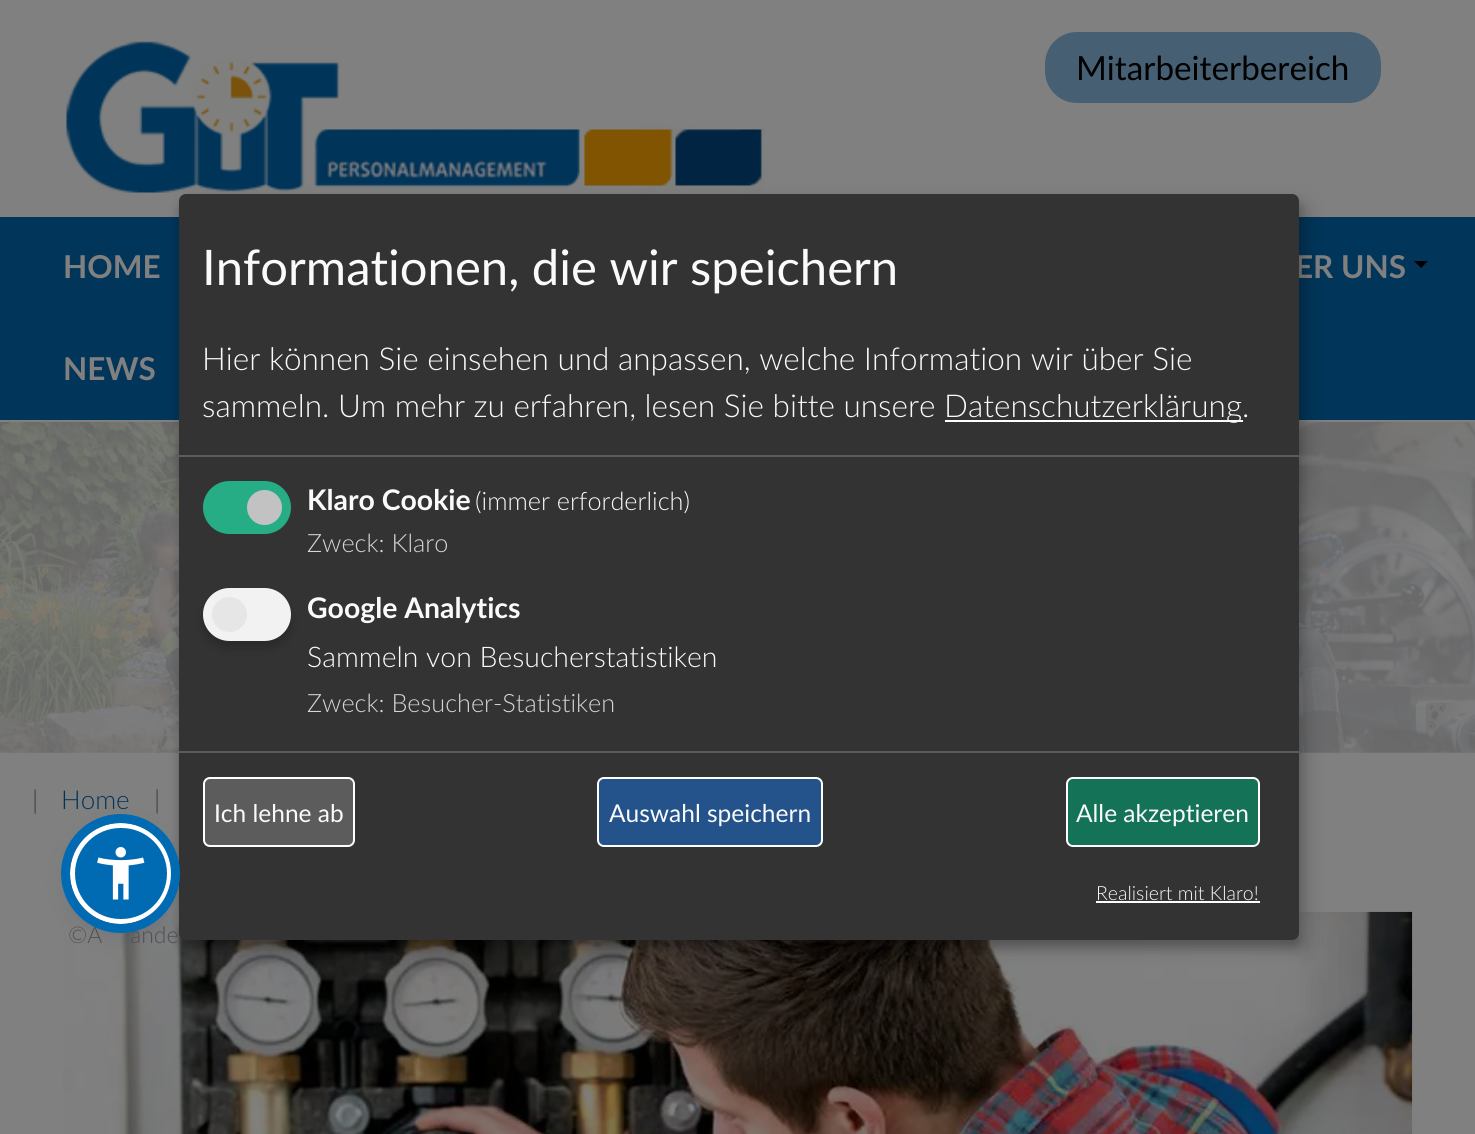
import math
import cairocffi as cairo

surface = cairo.ImageSurface(cairo.FORMAT_RGB24, 1475, 1134)
ctx = cairo.Context(surface)
options = cairo.FontOptions()
options.set_hint_metrics(cairo.HINT_METRICS_OFF)
options.set_hint_style(cairo.HINT_STYLE_NONE)
ctx.set_font_options(options)
ctx.set_miter_limit(4)


def rgb(r, g, b):
    ctx.set_source_rgb(r / 255, g / 255, b / 255)


def face(family, size, italic, bold):
    ctx.select_font_face(family, cairo.FONT_SLANT_ITALIC if italic else cairo.FONT_SLANT_NORMAL, cairo.FONT_WEIGHT_BOLD if bold else cairo.FONT_WEIGHT_NORMAL)
    ctx.set_font_size(size)


def label(x, y, s):
    ctx.move_to(x, y)
    ctx.show_text(s)


def rect(x, y, w, h):
    ctx.rectangle(x, y, w, h)
    ctx.fill()


def rrect(x, y, w, h, r):
    ctx.new_sub_path()
    for i, (u, v) in enumerate([(x + w - r, y + h - r), (x + r, y + h - r), (x + r, y + r), (x + w - r, y + r)]):
        ctx.arc(u, v, r, i * math.pi / 2, (i + 1) * math.pi / 2)
    ctx.close_path()


def soft_shadow(x, y, w, h, r, blur, alpha):
    ctx.push_group_with_content(cairo.CONTENT_ALPHA)
    ctx.set_operator(cairo.OPERATOR_SOURCE)
    for i in range(15, -16, -2):
        e = blur * i / 6
        if min(w, h) + 2 * e > 0:
            ctx.set_source_rgba(0, 0, 0, alpha * math.erfc((i - 1) / 8.5) / 2)
            rrect(x - e, y - e, w + 2 * e, h + 2 * e, max(0, min(r + e + blur * .6, min(w, h) / 2 + e)))
            ctx.fill()
    ctx.mask(ctx.pop_group())


def image(path, x, y, w, h):
    ctx.save()
    ctx.set_source_surface(cairo.ImageSurface.create_from_png(path), x, y)
    ctx.rectangle(x, y, w, h)
    ctx.fill()
    ctx.restore()


rgb(128, 128, 128)
ctx.paint()
image('image0.png', 66, 41, 699, 155)
rgb(70, 95, 114)
rrect(1045, 32, 336, 71, 32)
ctx.fill()
face('Lato', 33.25, 0, 0)
rgb(0, 0, 0)
label(1076, 80, 'Mitarbeiterbereich')
rgb(1, 53, 89)
rect(0, 217, 1475, 203)
face('Lato', 31.5, 0, 1)
rgb(128, 128, 128)
label(63, 278, 'HOME')
label(1295, 278, 'ER UNS')
rgb(0, 0, 0)
ctx.new_path()
ctx.move_to(1414, 261)
ctx.line_to(1428, 261)
ctx.line_to(1421, 268)
ctx.close_path()
ctx.fill()
rgb(128, 128, 128)
label(63, 380, 'NEWS')
image('image1.png', 0, 422, 1475, 331)
face('Lato Light', 26, 0, 0)
rgb(56, 59, 61)
label(32, 809, '|')
rgb(1, 53, 89)
label(61, 809, 'Home')
rgb(56, 59, 61)
label(154, 809, '|')
image('image2.png', 63, 911, 1350, 223)
face('Lato Light', 23, 0, 0)
rgb(81, 81, 80)
label(68, 943, '©A')
label(130, 943, 'ande')
rgb(0, 0, 0)
soft_shadow(187, 203, 1120, 746, 7, 9, 0.19)
soft_shadow(179, 201, 1120, 746, 7, 5, 0.2)
rgb(51, 51, 51)
rrect(179, 194, 1120, 746, 7)
ctx.fill()
rgb(93, 100, 148)
soft_shadow(70, 826, 102, 102, 51, 3.5, 0.2)
rgb(92, 92, 92)
rrect(204, 778, 150, 68, 6)
ctx.fill_preserve()
rgb(255, 255, 255)
ctx.stroke()
rgb(37, 44, 97)
soft_shadow(70, 831, 102, 102, 51, 13, 0.15)
rgb(0, 106, 179)
rrect(72.5, 825.5, 97, 96, 48)
ctx.fill_preserve()
rgb(255, 255, 255)
ctx.set_line_width(5)
ctx.stroke()
ctx.arc(120.5, 873.5, 55, 0, 2 * math.pi)
rgb(0, 106, 179)
ctx.set_line_width(9)
ctx.stroke()
image('image3.png', 97, 847, 48, 53)
rgb(92, 92, 92)
rect(179, 455, 1120, 2)
face('Lato', 49, 0, 0)
rgb(250, 250, 250)
label(202, 285, 'Informationen, die wir speichern')
face('Lato Light', 31.5, 0, 0)
label(202, 370, 'Hier können Sie einsehen und anpassen, welche Information wir über Sie')
label(202, 417, 'sammeln. Um mehr zu erfahren, lesen Sie bitte unsere')
rgb(255, 255, 255)
rect(945, 420, 298, 2)
rgb(250, 250, 250)
label(944, 417, 'Datenschutzerklärung')
label(1242, 417, '.')
rgb(39, 173, 133)
rrect(203, 481, 88, 53, 26.5)
ctx.fill()
rgb(194, 194, 194)
ctx.arc(264.5, 507.5, 17.5, 0, 2 * math.pi)
ctx.fill()
face('Lato', 28.4, 0, 1)
rgb(250, 250, 250)
label(307, 510, 'Klaro Cookie')
face('Lato Light', 25.25, 0, 0)
label(475, 510, '(immer erforderlich)')
rgb(216, 212, 212)
label(307, 552, 'Zweck: Klaro')
rgb(0, 0, 0)
soft_shadow(203, 595, 88, 53, 26.5, 5, 0.2)
rgb(242, 242, 242)
rrect(203, 588, 88, 53, 26.5)
ctx.fill()
rgb(230, 230, 230)
ctx.arc(229.5, 614.5, 17.5, 0, 2 * math.pi)
ctx.fill()
face('Lato', 28.4, 0, 1)
rgb(250, 250, 250)
label(307, 618, 'Google Analytics')
face('Lato Light', 28.4, 0, 0)
label(307, 667, 'Sammeln von Besucherstatistiken')
face('Lato Light', 25.25, 0, 0)
rgb(216, 212, 212)
label(307, 712, 'Zweck: Besucher-Statistiken')
rgb(92, 92, 92)
rect(179, 751, 1120, 2)
face('Lato', 24.5, 0, 0)
rgb(250, 250, 250)
label(214, 822, 'Ich lehne ab')
rgb(36, 83, 140)
rrect(598, 778, 224, 68, 6)
ctx.fill_preserve()
rgb(255, 255, 255)
ctx.set_line_width(2)
ctx.stroke()
rgb(250, 250, 250)
label(609, 822, 'Auswahl speichern')
rgb(20, 114, 86)
rrect(1067, 778, 192, 68, 6)
ctx.fill_preserve()
rgb(255, 255, 255)
ctx.stroke()
rgb(250, 250, 250)
label(1076, 822, 'Alle akzeptieren')
face('Lato Light', 19.5, 0, 0)
label(1096, 900, 'Realisiert mit Klaro!')
rgb(255, 255, 255)
rect(1096, 901, 164, 2)
surface.write_to_png('render.png')
